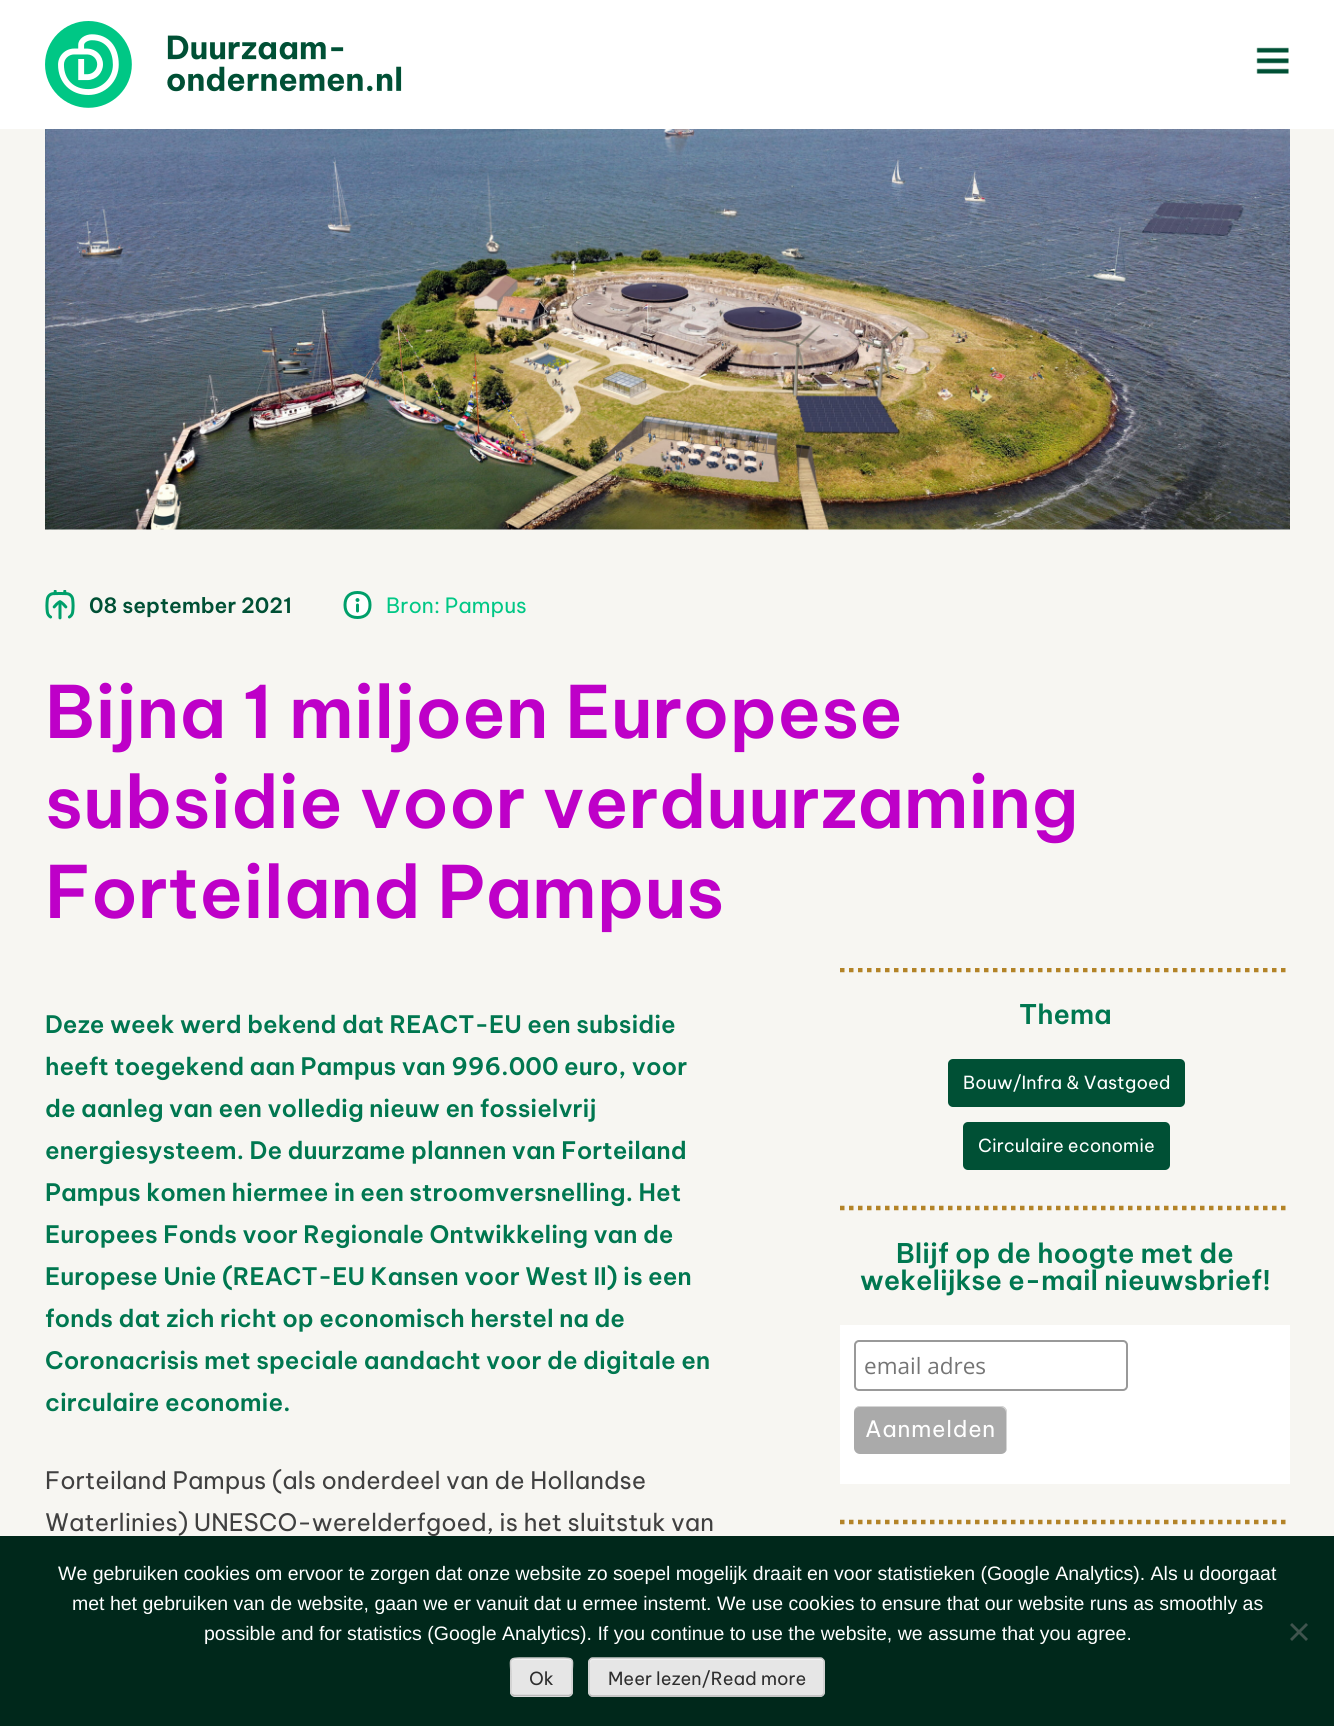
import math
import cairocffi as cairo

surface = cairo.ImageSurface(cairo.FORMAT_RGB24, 1334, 1726)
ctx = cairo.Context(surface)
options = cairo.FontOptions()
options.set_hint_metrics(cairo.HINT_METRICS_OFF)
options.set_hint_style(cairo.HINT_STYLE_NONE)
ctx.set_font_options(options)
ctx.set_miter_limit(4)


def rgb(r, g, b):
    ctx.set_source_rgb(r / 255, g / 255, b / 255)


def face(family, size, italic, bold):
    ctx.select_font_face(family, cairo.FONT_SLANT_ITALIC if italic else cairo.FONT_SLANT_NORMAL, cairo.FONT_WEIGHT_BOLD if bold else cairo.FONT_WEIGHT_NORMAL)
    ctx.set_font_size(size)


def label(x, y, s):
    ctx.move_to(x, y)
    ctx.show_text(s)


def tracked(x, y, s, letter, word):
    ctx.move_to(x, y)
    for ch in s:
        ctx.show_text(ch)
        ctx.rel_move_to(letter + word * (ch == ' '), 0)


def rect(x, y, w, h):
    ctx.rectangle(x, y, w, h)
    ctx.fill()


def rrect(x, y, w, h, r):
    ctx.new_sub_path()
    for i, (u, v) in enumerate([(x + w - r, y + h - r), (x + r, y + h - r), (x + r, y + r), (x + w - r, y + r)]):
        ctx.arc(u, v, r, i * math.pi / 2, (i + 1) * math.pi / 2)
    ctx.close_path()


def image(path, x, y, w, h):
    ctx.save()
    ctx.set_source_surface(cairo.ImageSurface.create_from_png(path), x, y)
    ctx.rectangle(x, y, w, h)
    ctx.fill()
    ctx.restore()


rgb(247, 246, 242)
ctx.paint()
rgb(255, 255, 255)
rect(0, 0, 1334, 129)
image('image0.png', 45, 21, 357, 87)
image('image1.png', 1256, 47, 33, 27)
image('image2.png', 45, 129, 1245, 401)
image('image3.png', 45, 590, 30, 30)
face('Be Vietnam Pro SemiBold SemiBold', 21, 0, 0)
rgb(0, 80, 53)
label(89, 613, '08 september 2021')
image('image4.png', 343, 591, 29, 28)
face('Be Vietnam Pro', 21, 0, 0)
rgb(0, 199, 133)
label(386, 613, 'Bron: Pampus')
face('Be Vietnam Pro SemiBold SemiBold', 72, 0, 0)
rgb(190, 0, 200)
label(45, 738, 'Bijna 1 miljoen Europese')
label(45, 828, 'subsidie voor verduurzaming')
label(45, 918, 'Forteiland Pampus')
face('Be Vietnam Pro SemiBold SemiBold', 24, 0, 0)
rgb(0, 119, 80)
label(45, 1033, 'Deze week werd bekend dat REACT-EU een subsidie')
label(45, 1075, 'heeft toegekend aan Pampus van 996.000 euro, voor')
label(45, 1117, 'de aanleg van een volledig nieuw en fossielvrij')
label(45, 1159, 'energiesysteem. De duurzame plannen van Forteiland')
label(45, 1201, 'Pampus komen hiermee in een stroomversnelling. Het')
label(45, 1243, 'Europees Fonds voor Regionale Ontwikkeling van de')
label(45, 1285, 'Europese Unie (REACT-EU Kansen voor West II) is een')
label(45, 1327, 'fonds dat zich richt op economisch herstel na de')
label(45, 1369, 'Coronacrisis met speciale aandacht voor de digitale en')
label(45, 1411, 'circulaire economie.')
face('Be Vietnam Pro', 24, 0, 0)
rgb(64, 64, 64)
label(45, 1489, 'Forteiland Pampus (als onderdeel van de Hollandse')
label(45, 1531, 'Waterlinies) UNESCO-werelderfgoed, is het sluitstuk van')
ctx.save()
ctx.rectangle(840, 968, 450, 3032)
ctx.clip()
ctx.new_path()
ctx.move_to(840, 970)
ctx.line_to(1290, 970)
rgb(179, 131, 39)
ctx.set_line_width(4.5)
ctx.set_dash([4.5, 4.5])
ctx.stroke()
ctx.restore()
face('Be Vietnam Pro SemiBold SemiBold', 27, 0, 0)
rgb(0, 119, 80)
label(1019, 1024, 'Thema')
rgb(0, 80, 53)
rrect(948, 1059, 237, 48, 5)
ctx.fill()
face('Be Vietnam Pro', 18, 0, 0)
rgb(255, 255, 255)
label(963, 1089, 'Bouw/Infra & Vastgoed')
rgb(0, 80, 53)
rrect(963, 1122, 207, 48, 5)
ctx.fill()
rgb(255, 255, 255)
label(978, 1152, 'Circulaire economie')
ctx.new_path()
ctx.move_to(840, 1208)
ctx.line_to(1290, 1208)
rgb(179, 131, 39)
ctx.set_line_width(4.5)
ctx.set_dash([4.5, 4.5])
ctx.stroke()
face('Be Vietnam Pro SemiBold SemiBold', 27, 0, 0)
rgb(0, 119, 80)
label(896, 1263, 'Blijf op de hoogte met de')
label(860, 1290, 'wekelijkse e-mail nieuwsbrief!')
rgb(255, 255, 255)
rect(840, 1325, 450, 159)
rrect(855, 1341, 272, 49, 4)
rgb(153, 153, 153)
ctx.set_line_width(2)
ctx.set_dash([])
ctx.stroke()
face('Open Sans', 22.5, 0, 0)
rgb(117, 117, 117)
label(864, 1374, 'email adres')
rgb(170, 170, 170)
rrect(854, 1406, 153, 48, 6)
ctx.fill()
ctx.set_source_rgba(1, 1, 1, 0.5)
ctx.new_path()
ctx.move_to(860, 1407)
ctx.line_to(1000, 1407)
ctx.curve_to(1004, 1407, 1006, 1410, 1006, 1413)
ctx.line_to(1006, 1449)
ctx.curve_to(1006, 1450, 1006, 1451, 1005, 1452)
ctx.curve_to(1006, 1451, 1007, 1450, 1007, 1448)
ctx.line_to(1007, 1412)
ctx.curve_to(1007, 1409, 1004, 1406, 1001, 1406)
ctx.line_to(860, 1406)
ctx.curve_to(857, 1406, 854, 1409, 854, 1412)
ctx.line_to(854, 1413)
ctx.curve_to(854, 1410, 856, 1407, 860, 1407)
ctx.close_path()
ctx.fill()
face('Be Vietnam Pro', 22.5, 0, 0)
rgb(255, 255, 255)
tracked(865, 1437, 'Aanmelden', 0.75, 0)
ctx.new_path()
ctx.move_to(840, 1522)
ctx.line_to(1290, 1522)
rgb(179, 131, 39)
ctx.set_line_width(4.5)
ctx.set_dash([4.5, 4.5])
ctx.stroke()
rgb(0, 40, 27)
rect(0, 1536, 1334, 190)
face('Liberation Sans', 19.5, 0, 0)
rgb(255, 255, 255)
label(58, 1580, 'We gebruiken cookies om ervoor te zorgen dat onze website zo soepel mogelijk draait en voor statistieken (Google Analytics). Als u doorgaat')
label(72, 1610, 'met het gebruiken van de website, gaan we er vanuit dat u ermee instemt. We use cookies to ensure that our website runs as smoothly as')
label(204, 1640, 'possible and for statistics (Google Analytics). If you continue to use the website, we assume that you agree.')
rgb(64, 84, 78)
ctx.new_path()
ctx.move_to(1306, 1623)
ctx.line_to(1308, 1625)
ctx.line_to(1292, 1641)
ctx.line_to(1290, 1639)
ctx.close_path()
ctx.fill()
ctx.new_path()
ctx.move_to(1290, 1625)
ctx.line_to(1292, 1623)
ctx.line_to(1308, 1639)
ctx.line_to(1306, 1641)
ctx.close_path()
ctx.fill()
rgb(230, 230, 230)
rrect(510, 1658, 63, 39, 5)
ctx.fill()
rgb(243, 243, 243)
ctx.new_path()
ctx.move_to(514, 1660)
ctx.line_to(568, 1660)
ctx.curve_to(570, 1660, 572, 1662, 572, 1664)
ctx.curve_to(572, 1657, 567, 1659, 560, 1659)
ctx.line_to(524, 1659)
ctx.curve_to(517, 1659, 512, 1657, 512, 1664)
ctx.curve_to(512, 1662, 513, 1660, 514, 1660)
ctx.close_path()
ctx.fill()
ctx.new_path()
ctx.move_to(571, 1694.5)
ctx.line_to(569, 1695.5)
ctx.line_to(514, 1695.5)
ctx.line_to(512, 1694.5)
rgb(187, 187, 187)
ctx.set_line_width(1.5)
ctx.set_dash([])
ctx.stroke()
ctx.new_path()
ctx.move_to(512, 1694.5)
ctx.curve_to(510, 1693, 511, 1689, 511, 1687)
ctx.line_to(511, 1677)
ctx.curve_to(511, 1658.5, 506.5, 1658, 523.5, 1658)
ctx.line_to(559.5, 1658)
ctx.curve_to(576.5, 1658, 572, 1658.5, 572, 1677)
ctx.line_to(572, 1687)
ctx.curve_to(572, 1689, 573, 1693, 571, 1694.5)
rgb(204, 204, 204)
ctx.stroke()
face('Be Vietnam Pro', 18, 0, 0)
rgb(46, 46, 46)
label(529, 1685, 'Ok')
rgb(230, 230, 230)
rrect(588, 1658, 237, 39, 5)
ctx.fill()
rgb(243, 243, 243)
ctx.new_path()
ctx.move_to(592, 1660)
ctx.line_to(820, 1660)
ctx.curve_to(822, 1660, 824, 1662, 824, 1664)
ctx.line_to(824, 1662)
ctx.curve_to(824, 1660, 823, 1659, 821, 1659)
ctx.line_to(593, 1659)
ctx.curve_to(591, 1659, 590, 1660, 590, 1662)
ctx.line_to(590, 1664)
ctx.curve_to(590, 1662, 591, 1660, 592, 1660)
ctx.close_path()
ctx.fill()
ctx.new_path()
ctx.move_to(823, 1694.5)
ctx.curve_to(822.5, 1695.5, 821.5, 1696, 820.5, 1696)
ctx.line_to(592.5, 1696)
ctx.curve_to(591.5, 1696, 590.5, 1695.5, 590, 1694.5)
rgb(187, 187, 187)
ctx.stroke()
ctx.new_path()
ctx.move_to(590, 1694.5)
ctx.curve_to(589, 1694, 589, 1693, 589, 1692)
ctx.line_to(589, 1662)
ctx.curve_to(589, 1661, 589, 1660, 590, 1659.5)
ctx.curve_to(590.5, 1658.5, 591.5, 1658, 592.5, 1658)
ctx.line_to(820.5, 1658)
ctx.curve_to(821.5, 1658, 822.5, 1658.5, 823, 1659.5)
ctx.curve_to(824, 1660, 824, 1661, 824, 1662)
ctx.line_to(824, 1692)
ctx.curve_to(824, 1693, 824, 1694, 823, 1694.5)
rgb(204, 204, 204)
ctx.stroke()
rgb(46, 46, 46)
label(608, 1685, 'Meer lezen/Read more')
surface.write_to_png('render.png')
